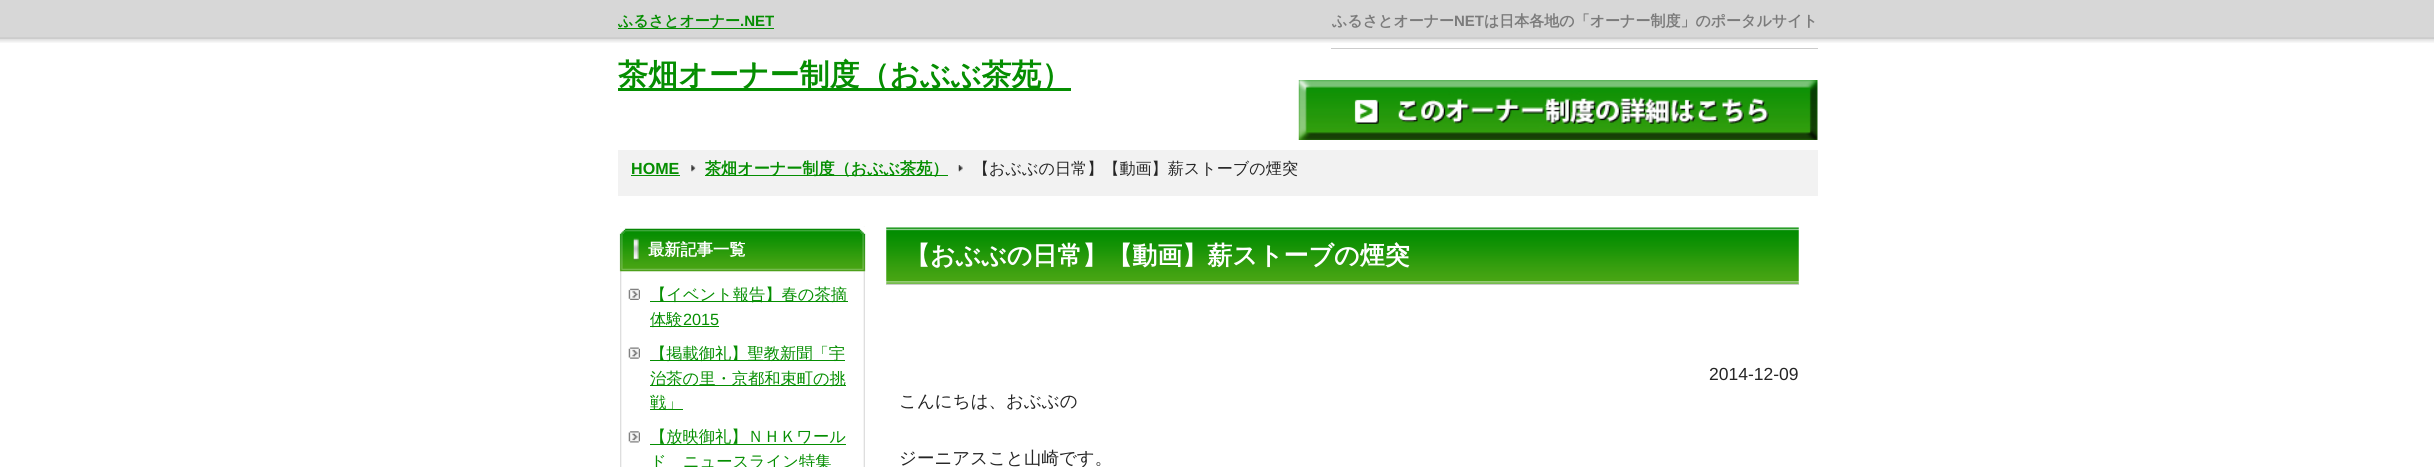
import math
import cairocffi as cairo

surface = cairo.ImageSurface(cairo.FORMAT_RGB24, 2434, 467)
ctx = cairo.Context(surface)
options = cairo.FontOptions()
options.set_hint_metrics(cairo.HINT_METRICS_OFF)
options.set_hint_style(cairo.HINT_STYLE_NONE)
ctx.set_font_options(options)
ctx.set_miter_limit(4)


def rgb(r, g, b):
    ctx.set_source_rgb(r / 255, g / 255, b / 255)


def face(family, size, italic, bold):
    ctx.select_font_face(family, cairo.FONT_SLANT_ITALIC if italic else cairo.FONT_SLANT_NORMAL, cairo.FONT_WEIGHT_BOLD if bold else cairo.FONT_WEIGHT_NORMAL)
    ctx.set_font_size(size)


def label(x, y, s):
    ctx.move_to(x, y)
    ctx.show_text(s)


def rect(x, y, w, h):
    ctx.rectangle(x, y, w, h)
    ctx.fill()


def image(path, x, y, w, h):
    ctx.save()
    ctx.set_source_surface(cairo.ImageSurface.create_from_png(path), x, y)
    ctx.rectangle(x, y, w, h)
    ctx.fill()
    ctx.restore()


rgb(255, 255, 255)
ctx.paint()
image('image0.png', 0, 0, 2434, 43)
rgb(5, 142, 1)
rect(618, 28, 156, 1)
face('WenQuanYi Zen Hei', 15, 0, 1)
label(618, 26, 'ふるさとオーナー')
face('Liberation Sans', 15, 0, 1)
label(740, 26, '.NET')
rgb(204, 204, 204)
rect(1331, 48, 487, 1)
face('WenQuanYi Zen Hei', 15, 0, 1)
rgb(123, 123, 123)
label(1332, 26, 'ふるさとオーナー')
face('Liberation Sans', 15, 0, 1)
label(1454, 26, 'NET')
face('WenQuanYi Zen Hei', 15, 0, 1)
label(1484, 26, 'は日本各地の「オーナー制度」のポータルサイト')
rgb(5, 142, 1)
rect(618, 88, 453, 3)
face('WenQuanYi Zen Hei', 30, 0, 1)
label(618, 85, '茶畑オーナー制度（おぶぶ茶苑）')
image('image1.png', 1298, 80, 520, 60)
rgb(242, 242, 242)
rect(618, 150, 1200, 46)
face('Liberation Sans', 16.1, 0, 1)
rgb(5, 142, 1)
label(631, 174, 'HOME')
rect(631, 175, 49, 1)
image('image2.png', 691, 165, 5, 7)
rect(705, 175, 243, 1)
face('WenQuanYi Zen Hei', 16.1, 0, 1)
label(705, 174, '茶畑オーナー制度（おぶぶ茶苑）')
image('image3.png', 958, 165, 5, 7)
face('WenQuanYi Zen Hei Medium', 16.1, 0, 0)
rgb(37, 37, 37)
label(973, 174, '【おぶぶの日常】【動画】薪ストーブの煙突')
image('image4.png', 620, 226, 245, 241)
image('image5.png', 619, 226, 247, 46)
face('WenQuanYi Zen Hei', 16.25, 0, 1)
rgb(255, 255, 255)
label(648, 255, '最新記事一覧')
image('image6.png', 628, 288, 12, 12)
rgb(5, 142, 1)
rect(650, 301, 198, 1)
face('WenQuanYi Zen Hei Medium', 16.25, 0, 0)
label(650, 300, '【イベント報告】春の茶摘')
rect(650, 326, 69, 1)
label(650, 325, '体験')
face('Liberation Sans', 16.25, 0, 0)
label(683, 325, '2015')
image('image7.png', 628, 347, 12, 12)
rect(650, 360, 195, 1)
face('WenQuanYi Zen Hei Medium', 16.25, 0, 0)
label(650, 359, '【掲載御礼】聖教新聞「宇')
rect(650, 385, 196, 1)
label(650, 384, '治茶の里・京都和束町の挑')
rect(650, 409, 33, 1)
label(650, 408, '戦」')
image('image8.png', 628, 431, 12, 12)
rect(650, 444, 196, 1)
label(650, 442, '【放映御礼】ＮＨＫワール')
label(650, 467, 'ド　ニュースライン特集')
image('image9.png', 886, 227, 913, 57)
rgb(204, 204, 204)
rect(886, 284, 913, 1)
face('WenQuanYi Zen Hei', 25, 0, 1)
rgb(255, 255, 255)
label(905, 264, '【おぶぶの日常】【動画】薪ストーブの煙突')
face('Liberation Sans', 17.5, 0, 0)
rgb(37, 37, 37)
label(1709, 380, '2014-12-09')
face('WenQuanYi Zen Hei Medium', 17.5, 0, 0)
label(899, 407, 'こんにちは、おぶぶの')
label(899, 464, 'ジーニアスこと山崎です。')
surface.write_to_png('render.png')
